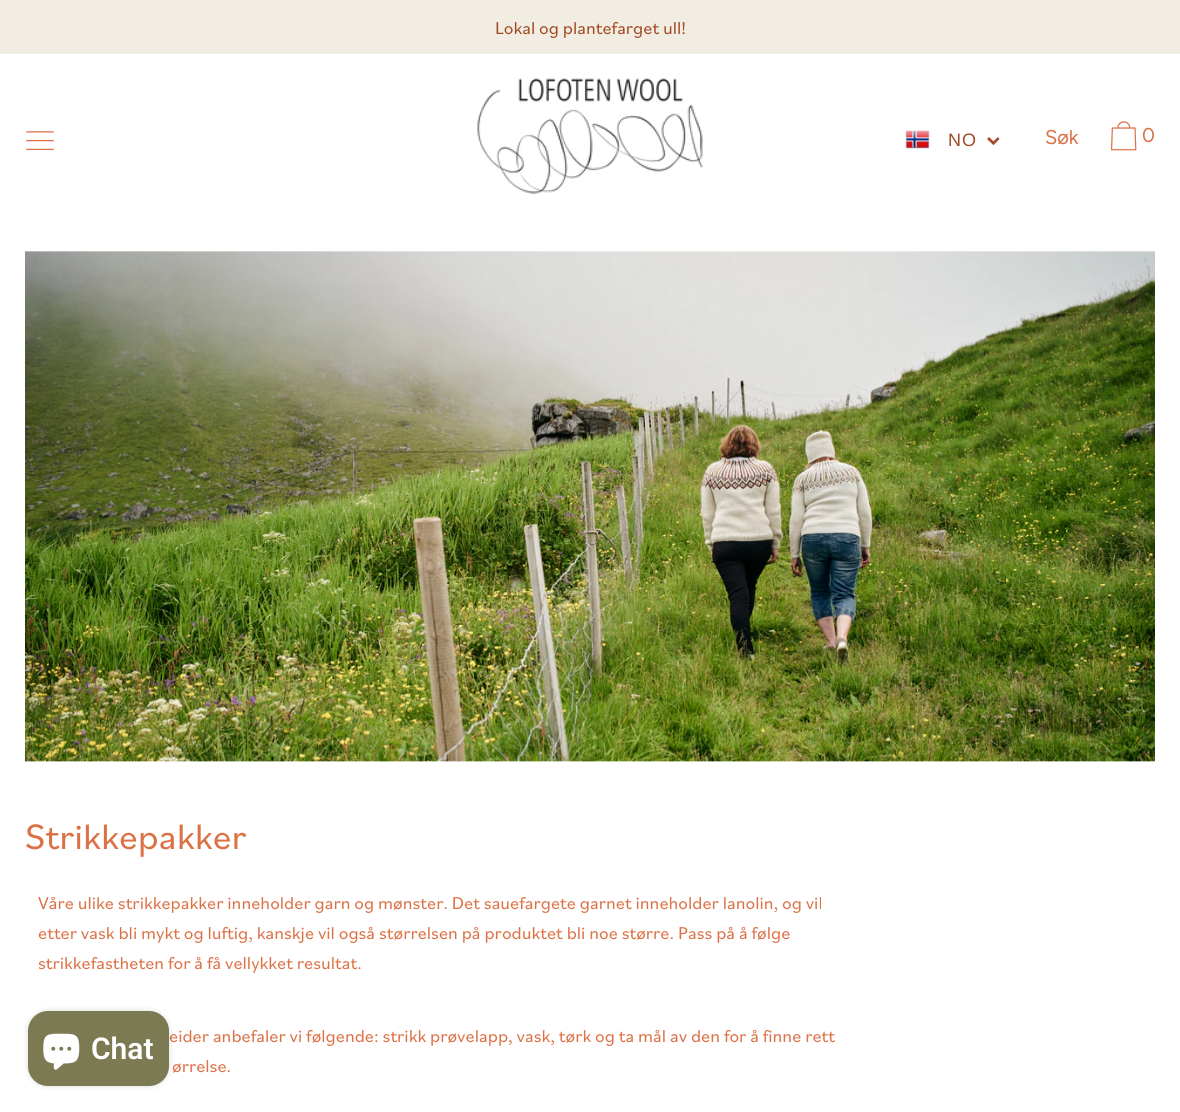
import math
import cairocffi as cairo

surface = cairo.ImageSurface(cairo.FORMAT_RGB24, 1180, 1112)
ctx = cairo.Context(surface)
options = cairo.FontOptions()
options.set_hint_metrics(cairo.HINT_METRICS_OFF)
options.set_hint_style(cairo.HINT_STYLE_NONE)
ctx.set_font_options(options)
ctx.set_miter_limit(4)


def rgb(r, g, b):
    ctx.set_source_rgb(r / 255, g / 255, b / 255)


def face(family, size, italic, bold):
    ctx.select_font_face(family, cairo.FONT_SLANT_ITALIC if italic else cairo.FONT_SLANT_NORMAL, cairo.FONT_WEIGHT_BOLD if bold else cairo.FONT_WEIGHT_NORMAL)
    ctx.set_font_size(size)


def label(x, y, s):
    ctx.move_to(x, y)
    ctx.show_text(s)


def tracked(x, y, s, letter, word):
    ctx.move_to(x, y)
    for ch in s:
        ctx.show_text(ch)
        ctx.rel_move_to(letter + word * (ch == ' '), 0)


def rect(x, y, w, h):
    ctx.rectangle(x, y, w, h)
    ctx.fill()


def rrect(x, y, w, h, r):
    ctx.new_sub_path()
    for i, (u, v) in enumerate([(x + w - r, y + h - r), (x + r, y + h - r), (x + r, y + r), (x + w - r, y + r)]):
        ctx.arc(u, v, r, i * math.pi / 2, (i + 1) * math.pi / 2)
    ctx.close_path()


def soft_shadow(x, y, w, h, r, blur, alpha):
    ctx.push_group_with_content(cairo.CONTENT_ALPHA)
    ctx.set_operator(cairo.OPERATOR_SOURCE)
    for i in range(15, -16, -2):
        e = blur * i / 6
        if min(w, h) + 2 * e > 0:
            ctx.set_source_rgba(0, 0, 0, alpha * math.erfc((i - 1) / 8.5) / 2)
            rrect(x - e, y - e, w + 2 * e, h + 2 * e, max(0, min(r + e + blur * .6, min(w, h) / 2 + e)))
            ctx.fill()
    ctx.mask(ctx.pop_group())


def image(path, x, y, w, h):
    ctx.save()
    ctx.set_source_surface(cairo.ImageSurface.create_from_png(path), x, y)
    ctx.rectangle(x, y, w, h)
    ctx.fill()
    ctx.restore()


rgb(255, 255, 255)
ctx.paint()
rgb(242, 237, 226)
rect(0, 0, 1180, 54)
face('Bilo', 18, 0, 0)
rgb(162, 73, 37)
label(495, 34, 'Lokal og plantefarget ull!')
image('image0.png', 26, 131, 28, 19)
image('image1.png', 477, 78, 226, 116)
image('image2.png', 905, 130, 25, 19)
face('Liberation Sans', 18, 0, 0)
tracked(948, 146, 'NO', 1, 0)
rgb(163, 74, 37)
ctx.new_path()
ctx.move_to(998, 137)
ctx.line_to(999.5, 139)
ctx.line_to(993.5, 145)
ctx.line_to(991.5, 143)
ctx.close_path()
ctx.fill()
ctx.new_path()
ctx.move_to(989, 137)
ctx.line_to(995, 143)
ctx.line_to(993.5, 145)
ctx.line_to(987, 139)
ctx.close_path()
ctx.fill()
face('Figtree', 20, 0, 0)
rgb(220, 113, 70)
label(1045, 144, 'Søk')
image('image3.png', 1110, 121, 27, 30)
label(1142, 142, '0')
image('image4.png', 25, 251, 1130, 511)
face('Bilo', 37, 0, 0)
label(25, 849, 'Strikkepakker')
face('Bilo', 18, 0, 0)
label(38, 909, 'Våre ulike strikkepakker inneholder garn og mønster. Det sauefargete garnet inneholder lanolin, og vil')
label(38, 939, 'etter vask bli mykt og luftig, kanskje vil også størrelsen på produktet bli noe større. Pass på å følge')
label(38, 969, 'strikkefastheten for å få vellykket resultat.')
label(169, 1042, 'eider anbefaler vi følgende: strikk prøvelapp, vask, tørk og ta mål av den for å finne rett')
label(172, 1072, 'ørrelse.')
rgb(0, 0, 0)
soft_shadow(28, 1011, 141, 75, 20, 3, 0.15)
rgb(124, 122, 83)
rrect(28, 1011, 141, 75, 20)
ctx.fill()
image('image5.png', 43, 1033, 37, 37)
face('Roboto SemiBold', 30, 0, 0)
rgb(255, 255, 255)
label(91, 1059, 'Chat')
surface.write_to_png('render.png')
